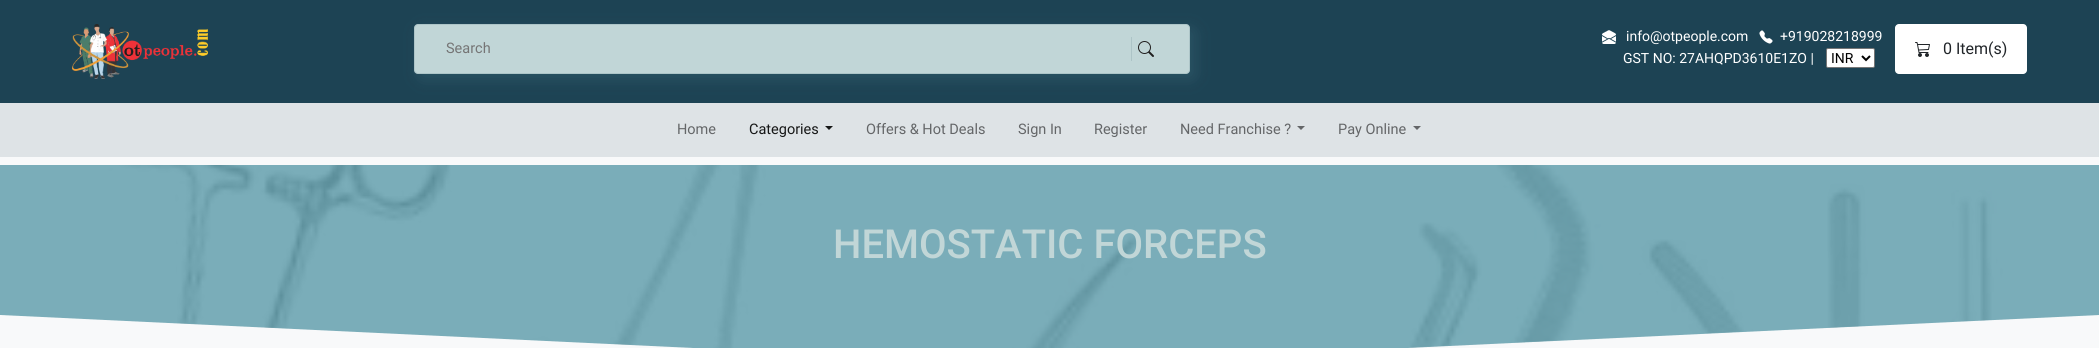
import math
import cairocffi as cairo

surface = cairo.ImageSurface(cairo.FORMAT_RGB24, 2099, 348)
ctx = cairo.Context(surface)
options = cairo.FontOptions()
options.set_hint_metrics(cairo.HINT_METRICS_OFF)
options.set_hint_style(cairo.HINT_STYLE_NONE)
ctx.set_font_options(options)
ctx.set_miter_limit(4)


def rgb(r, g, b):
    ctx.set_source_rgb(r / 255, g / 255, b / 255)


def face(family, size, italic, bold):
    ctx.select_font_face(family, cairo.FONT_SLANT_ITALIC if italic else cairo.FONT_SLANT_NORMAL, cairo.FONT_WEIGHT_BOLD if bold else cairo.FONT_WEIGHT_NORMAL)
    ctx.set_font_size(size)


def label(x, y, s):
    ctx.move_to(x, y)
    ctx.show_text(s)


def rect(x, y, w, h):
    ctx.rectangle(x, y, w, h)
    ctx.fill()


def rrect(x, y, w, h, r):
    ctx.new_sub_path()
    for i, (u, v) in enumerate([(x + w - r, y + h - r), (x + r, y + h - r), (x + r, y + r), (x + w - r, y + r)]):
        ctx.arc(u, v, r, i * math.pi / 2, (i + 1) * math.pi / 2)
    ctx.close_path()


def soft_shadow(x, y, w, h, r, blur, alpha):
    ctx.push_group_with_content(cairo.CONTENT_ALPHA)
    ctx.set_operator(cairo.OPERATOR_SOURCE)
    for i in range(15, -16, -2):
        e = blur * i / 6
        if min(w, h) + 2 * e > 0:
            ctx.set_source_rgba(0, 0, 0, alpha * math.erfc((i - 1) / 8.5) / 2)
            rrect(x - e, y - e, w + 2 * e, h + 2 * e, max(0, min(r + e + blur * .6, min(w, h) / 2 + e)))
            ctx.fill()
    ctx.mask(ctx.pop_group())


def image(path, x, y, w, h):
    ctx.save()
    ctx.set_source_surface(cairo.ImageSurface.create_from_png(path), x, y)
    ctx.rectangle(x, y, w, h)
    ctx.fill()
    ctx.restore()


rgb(248, 249, 250)
ctx.paint()
rgb(29, 67, 84)
rect(0, 0, 2099, 103)
image('image0.png', 72, 24, 136, 55)
rgb(105, 163, 176)
soft_shadow(419, 29, 776, 50, 4, 7.5, 0.17)
rgb(193, 214, 215)
rrect(414, 24, 776, 50, 4)
ctx.fill()
rrect(414.5, 24.5, 775, 49, 3.5)
ctx.set_source_rgba(0.114, 0.263, 0.329, 0.12)
ctx.set_line_width(1)
ctx.stroke()
rgb(173, 196, 199)
rect(1131, 37, 1, 24)
face('Roboto', 14.5, 0, 0)
rgb(117, 117, 117)
label(446, 53, 'Search')
image('image1.png', 1138, 41, 16, 16)
image('image2.png', 1602, 30, 14, 14)
face('Roboto', 14, 0, 0)
rgb(255, 255, 255)
label(1626, 41, 'info@otpeople.com')
image('image3.png', 1759, 30, 14, 14)
label(1780, 41, '+919028218999')
label(1623, 63, 'GST NO: 27AHQPD3610E1ZO |')
rrect(1826.5, 48.5, 48, 19, 1.5)
ctx.fill_preserve()
rgb(118, 118, 118)
ctx.stroke()
ctx.new_path()
ctx.move_to(1862, 56)
ctx.line_to(1866, 60)
ctx.line_to(1870, 56)
rgb(0, 0, 0)
ctx.set_line_width(2)
ctx.stroke()
label(1831, 63, 'INR')
rgb(255, 255, 255)
rrect(1895, 24, 132, 50, 4)
ctx.fill()
image('image4.png', 1915, 42, 15, 15)
face('Roboto', 16, 0, 0)
rgb(33, 37, 41)
label(1943, 54, '0 Item(s)')
rgb(222, 227, 230)
rect(0, 103, 2099, 54)
face('Roboto', 14.5, 0, 0)
rgb(100, 102, 104)
label(677, 134, 'Home')
rgb(22, 23, 23)
label(749, 134, 'Categories')
ctx.new_path()
ctx.move_to(825, 126)
ctx.line_to(833, 126)
ctx.line_to(829, 130)
ctx.close_path()
ctx.fill()
rgb(100, 102, 104)
label(866, 134, 'Offers & Hot Deals')
label(1018, 134, 'Sign In')
label(1094, 134, 'Register')
label(1180, 134, 'Need Franchise ?')
ctx.new_path()
ctx.move_to(1297, 126)
ctx.line_to(1305, 126)
ctx.line_to(1301, 130)
ctx.close_path()
ctx.fill()
label(1338, 134, 'Pay Online')
ctx.new_path()
ctx.move_to(1413, 126)
ctx.line_to(1421, 126)
ctx.line_to(1417, 130)
ctx.close_path()
ctx.fill()
image('image5.png', 0, 165, 2099, 183)
ctx.set_source_rgba(0.412, 0.639, 0.69, 0.88)
ctx.new_path()
ctx.move_to(0, 165)
ctx.line_to(0, 315)
ctx.line_to(1050, 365)
ctx.line_to(2099, 315)
ctx.line_to(2099, 165)
ctx.close_path()
ctx.fill()
face('Roboto Medium', 40, 0, 0)
rgb(193, 214, 215)
label(833, 258, 'HEMOSTATIC FORCEPS')
surface.write_to_png('render.png')
